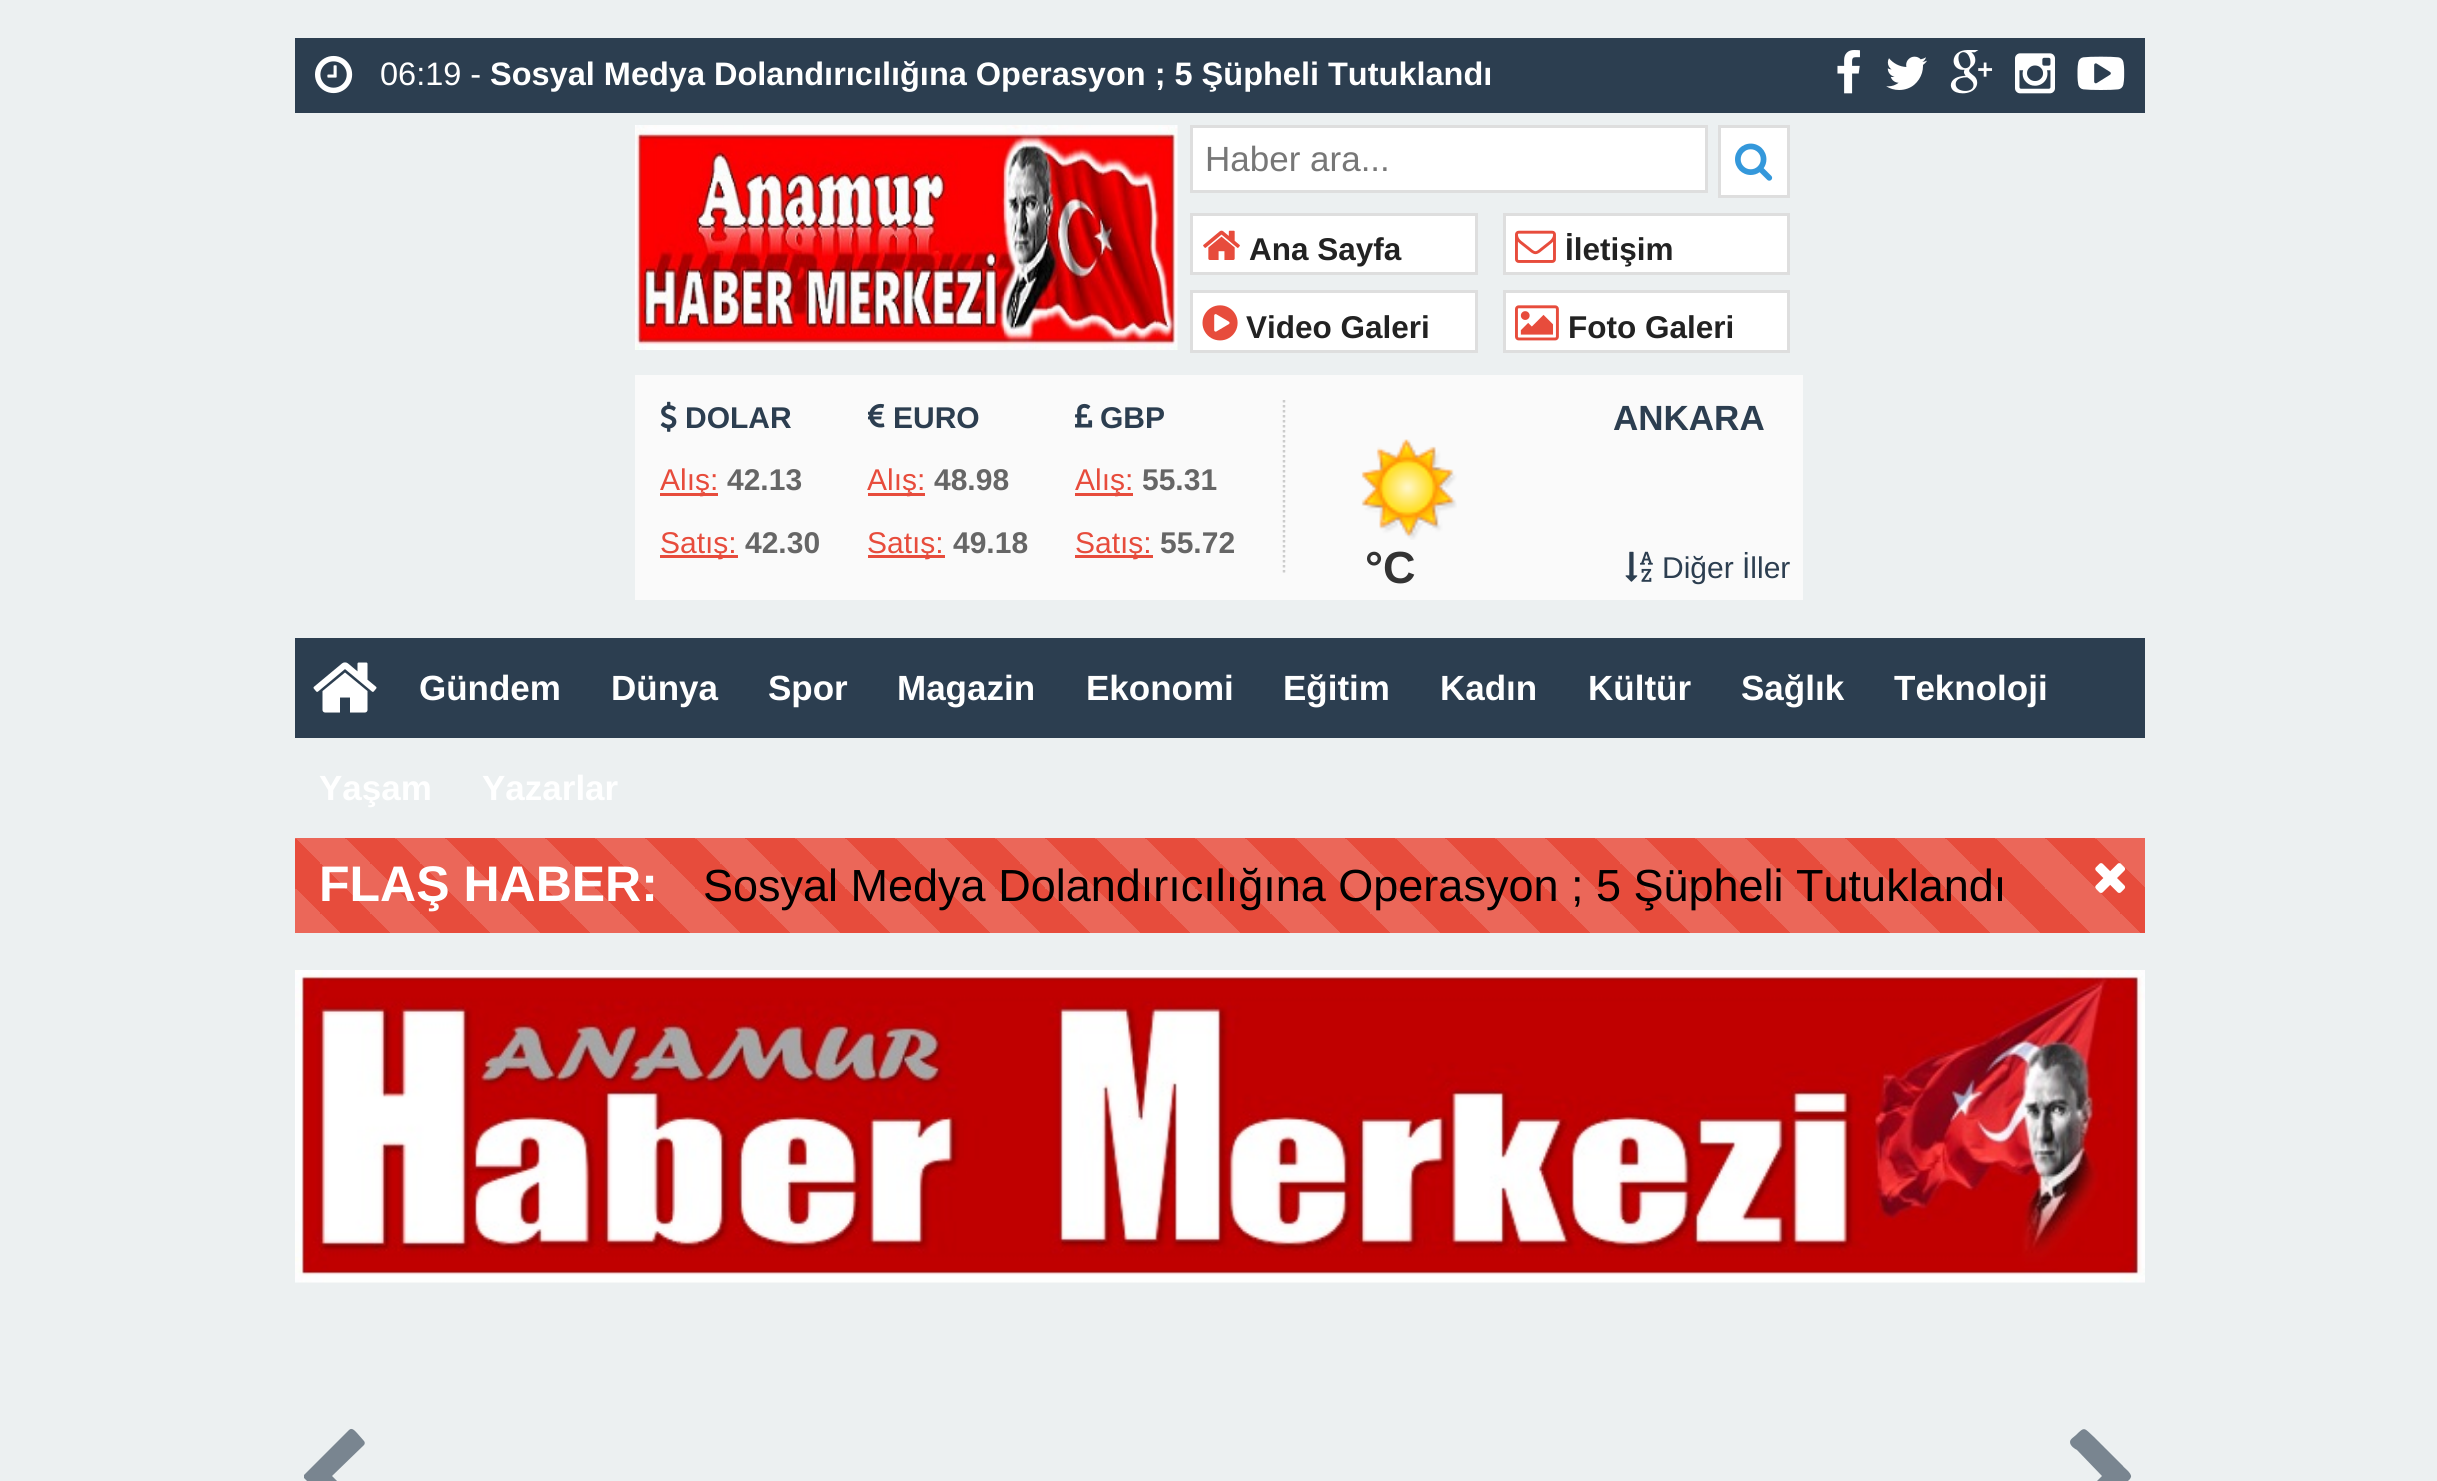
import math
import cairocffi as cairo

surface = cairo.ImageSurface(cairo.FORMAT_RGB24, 2437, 1481)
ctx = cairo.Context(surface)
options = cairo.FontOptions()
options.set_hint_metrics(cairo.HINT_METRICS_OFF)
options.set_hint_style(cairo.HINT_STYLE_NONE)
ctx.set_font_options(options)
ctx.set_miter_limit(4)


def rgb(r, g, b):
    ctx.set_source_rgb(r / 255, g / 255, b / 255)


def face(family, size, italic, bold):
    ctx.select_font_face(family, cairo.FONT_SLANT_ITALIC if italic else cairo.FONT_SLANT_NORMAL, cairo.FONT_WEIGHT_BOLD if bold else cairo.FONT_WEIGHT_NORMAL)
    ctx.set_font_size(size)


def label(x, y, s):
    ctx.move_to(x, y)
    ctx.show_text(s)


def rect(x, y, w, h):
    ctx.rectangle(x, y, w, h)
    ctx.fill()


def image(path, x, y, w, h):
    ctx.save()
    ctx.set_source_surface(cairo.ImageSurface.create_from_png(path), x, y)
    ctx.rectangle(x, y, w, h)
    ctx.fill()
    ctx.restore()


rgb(236, 240, 241)
ctx.paint()
rgb(44, 62, 80)
rect(295, 38, 1850, 75)
image('image0.png', 315, 55, 38, 39)
face('Liberation Sans', 32.5, 0, 0)
rgb(255, 255, 255)
label(380, 85, '06:19 -')
face('Liberation Sans', 32.5, 0, 1)
label(490, 85, 'Sosyal Medya Dolandırıcılığına Operasyon ; 5 Şüpheli Tutuklandı')
image('image1.png', 1837, 50, 23, 44)
image('image2.png', 1886, 56, 41, 34)
image('image3.png', 1950, 50, 43, 44)
image('image4.png', 2015, 53, 40, 41)
image('image5.png', 2077, 56, 48, 34)
image('image6.png', 635, 125, 543, 225)
ctx.rectangle(1191.5, 126.5, 515, 65)
ctx.fill_preserve()
rgb(222, 222, 222)
ctx.set_line_width(3)
ctx.stroke()
face('Liberation Sans', 35, 0, 0)
rgb(119, 119, 119)
label(1205, 171, 'Haber ara...')
rgb(255, 255, 255)
ctx.rectangle(1719.5, 126.5, 69, 70)
ctx.fill_preserve()
rgb(222, 222, 222)
ctx.stroke()
image('image7.png', 1735, 143, 38, 38)
rgb(255, 255, 255)
ctx.rectangle(1191.5, 214.5, 285, 59)
ctx.fill_preserve()
rgb(222, 222, 222)
ctx.stroke()
image('image8.png', 1203, 230, 37, 30)
face('Liberation Sans', 31.5, 0, 1)
rgb(34, 34, 34)
label(1249, 260, 'Ana Sayfa')
rgb(255, 255, 255)
ctx.rectangle(1504.5, 214.5, 284, 59)
ctx.fill_preserve()
rgb(222, 222, 222)
ctx.stroke()
image('image9.png', 1515, 230, 41, 33)
rgb(34, 34, 34)
label(1565, 260, 'İletişim')
rgb(255, 255, 255)
ctx.rectangle(1191.5, 291.5, 285, 60)
ctx.fill_preserve()
rgb(222, 222, 222)
ctx.stroke()
image('image10.png', 1202, 305, 36, 36)
rgb(34, 34, 34)
label(1246, 338, 'Video Galeri')
rgb(255, 255, 255)
ctx.rectangle(1504.5, 291.5, 284, 60)
ctx.fill_preserve()
rgb(222, 222, 222)
ctx.stroke()
image('image11.png', 1515, 305, 44, 36)
rgb(34, 34, 34)
label(1568, 338, 'Foto Galeri')
rgb(250, 250, 250)
rect(635, 375, 1168, 225)
ctx.new_path()
ctx.move_to(1284, 400)
ctx.line_to(1284, 575)
rgb(204, 204, 204)
ctx.set_line_width(2.5)
ctx.set_dash([2.5, 2.5])
ctx.stroke()
image('image12.png', 660, 401, 17, 31)
face('Liberation Sans', 30, 0, 1)
rgb(44, 62, 80)
label(685, 428, 'DOLAR')
rgb(231, 76, 60)
rect(660, 493, 58, 3)
face('Liberation Sans', 30, 0, 0)
label(660, 490, 'Alış:')
face('Liberation Sans', 30, 0, 1)
rgb(102, 102, 102)
label(727, 490, '42.13')
rgb(231, 76, 60)
rect(660, 555, 78, 3)
face('Liberation Sans', 30, 0, 0)
label(660, 553, 'Satış:')
face('Liberation Sans', 30, 0, 1)
rgb(102, 102, 102)
label(745, 553, '42.30')
image('image13.png', 868, 403, 17, 25)
rgb(44, 62, 80)
label(893, 428, 'EURO')
rgb(231, 76, 60)
rect(868, 493, 57, 3)
face('Liberation Sans', 30, 0, 0)
label(867, 490, 'Alış:')
face('Liberation Sans', 30, 0, 1)
rgb(102, 102, 102)
label(934, 490, '48.98')
rgb(231, 76, 60)
rect(868, 555, 77, 3)
face('Liberation Sans', 30, 0, 0)
label(867, 553, 'Satış:')
face('Liberation Sans', 30, 0, 1)
rgb(102, 102, 102)
label(953, 553, '49.18')
image('image14.png', 1075, 403, 18, 25)
rgb(44, 62, 80)
label(1100, 428, 'GBP')
rgb(231, 76, 60)
rect(1075, 493, 58, 3)
face('Liberation Sans', 30, 0, 0)
label(1075, 490, 'Alış:')
face('Liberation Sans', 30, 0, 1)
rgb(102, 102, 102)
label(1142, 490, '55.31')
rgb(231, 76, 60)
rect(1075, 555, 78, 3)
face('Liberation Sans', 30, 0, 0)
label(1075, 553, 'Satış:')
face('Liberation Sans', 30, 0, 1)
rgb(102, 102, 102)
label(1160, 553, '55.72')
face('Liberation Sans', 35, 0, 1)
rgb(44, 62, 80)
label(1613, 430, 'ANKARA')
image('image15.png', 1361, 439, 96, 101)
face('Liberation Sans', 45, 0, 1)
rgb(51, 51, 51)
label(1365, 583, '°C')
image('image16.png', 1625, 551, 28, 31)
face('Liberation Sans', 30, 0, 0)
rgb(44, 62, 80)
label(1662, 578, 'Diğer İller')
rect(295, 638, 1850, 100)
image('image17.png', 313, 662, 64, 51)
face('Liberation Sans', 35, 0, 1)
rgb(255, 255, 255)
label(419, 700, 'Gündem')
label(611, 700, 'Dünya')
label(768, 700, 'Spor')
label(897, 700, 'Magazin')
label(1086, 700, 'Ekonomi')
label(1283, 700, 'Eğitim')
label(1440, 700, 'Kadın')
label(1588, 700, 'Kültür')
label(1741, 700, 'Sağlık')
label(1894, 700, 'Teknoloji')
label(319, 800, 'Yaşam')
label(482, 800, 'Yazarlar')
gradient = cairo.LinearGradient(295, 938, 395, 838)
gradient.add_color_stop_rgba(0.25, 0.922, 0.404, 0.349, 1)
gradient.add_color_stop_rgba(0.25, 0.906, 0.298, 0.235, 1)
gradient.add_color_stop_rgba(0.5, 0.906, 0.298, 0.235, 1)
gradient.add_color_stop_rgba(0.5, 0.922, 0.404, 0.349, 1)
gradient.add_color_stop_rgba(0.75, 0.922, 0.404, 0.349, 1)
gradient.add_color_stop_rgba(0.75, 0.906, 0.298, 0.235, 1)
gradient.add_color_stop_rgba(1, 0.906, 0.298, 0.235, 1)
ctx.set_source(gradient)
rect(295, 838, 100, 95)
gradient = cairo.LinearGradient(395, 938, 495, 838)
gradient.add_color_stop_rgba(0.25, 0.922, 0.404, 0.349, 1)
gradient.add_color_stop_rgba(0.25, 0.906, 0.298, 0.235, 1)
gradient.add_color_stop_rgba(0.5, 0.906, 0.298, 0.235, 1)
gradient.add_color_stop_rgba(0.5, 0.922, 0.404, 0.349, 1)
gradient.add_color_stop_rgba(0.75, 0.922, 0.404, 0.349, 1)
gradient.add_color_stop_rgba(0.75, 0.906, 0.298, 0.235, 1)
gradient.add_color_stop_rgba(1, 0.906, 0.298, 0.235, 1)
ctx.set_source(gradient)
rect(395, 838, 100, 95)
gradient = cairo.LinearGradient(495, 938, 595, 838)
gradient.add_color_stop_rgba(0.25, 0.922, 0.404, 0.349, 1)
gradient.add_color_stop_rgba(0.25, 0.906, 0.298, 0.235, 1)
gradient.add_color_stop_rgba(0.5, 0.906, 0.298, 0.235, 1)
gradient.add_color_stop_rgba(0.5, 0.922, 0.404, 0.349, 1)
gradient.add_color_stop_rgba(0.75, 0.922, 0.404, 0.349, 1)
gradient.add_color_stop_rgba(0.75, 0.906, 0.298, 0.235, 1)
gradient.add_color_stop_rgba(1, 0.906, 0.298, 0.235, 1)
ctx.set_source(gradient)
rect(495, 838, 100, 95)
gradient = cairo.LinearGradient(595, 938, 695, 838)
gradient.add_color_stop_rgba(0.25, 0.922, 0.404, 0.349, 1)
gradient.add_color_stop_rgba(0.25, 0.906, 0.298, 0.235, 1)
gradient.add_color_stop_rgba(0.5, 0.906, 0.298, 0.235, 1)
gradient.add_color_stop_rgba(0.5, 0.922, 0.404, 0.349, 1)
gradient.add_color_stop_rgba(0.75, 0.922, 0.404, 0.349, 1)
gradient.add_color_stop_rgba(0.75, 0.906, 0.298, 0.235, 1)
gradient.add_color_stop_rgba(1, 0.906, 0.298, 0.235, 1)
ctx.set_source(gradient)
rect(595, 838, 100, 95)
gradient = cairo.LinearGradient(695, 938, 795, 838)
gradient.add_color_stop_rgba(0.25, 0.922, 0.404, 0.349, 1)
gradient.add_color_stop_rgba(0.25, 0.906, 0.298, 0.235, 1)
gradient.add_color_stop_rgba(0.5, 0.906, 0.298, 0.235, 1)
gradient.add_color_stop_rgba(0.5, 0.922, 0.404, 0.349, 1)
gradient.add_color_stop_rgba(0.75, 0.922, 0.404, 0.349, 1)
gradient.add_color_stop_rgba(0.75, 0.906, 0.298, 0.235, 1)
gradient.add_color_stop_rgba(1, 0.906, 0.298, 0.235, 1)
ctx.set_source(gradient)
rect(695, 838, 100, 95)
gradient = cairo.LinearGradient(795, 938, 895, 838)
gradient.add_color_stop_rgba(0.25, 0.922, 0.404, 0.349, 1)
gradient.add_color_stop_rgba(0.25, 0.906, 0.298, 0.235, 1)
gradient.add_color_stop_rgba(0.5, 0.906, 0.298, 0.235, 1)
gradient.add_color_stop_rgba(0.5, 0.922, 0.404, 0.349, 1)
gradient.add_color_stop_rgba(0.75, 0.922, 0.404, 0.349, 1)
gradient.add_color_stop_rgba(0.75, 0.906, 0.298, 0.235, 1)
gradient.add_color_stop_rgba(1, 0.906, 0.298, 0.235, 1)
ctx.set_source(gradient)
rect(795, 838, 100, 95)
gradient = cairo.LinearGradient(895, 938, 995, 838)
gradient.add_color_stop_rgba(0.25, 0.922, 0.404, 0.349, 1)
gradient.add_color_stop_rgba(0.25, 0.906, 0.298, 0.235, 1)
gradient.add_color_stop_rgba(0.5, 0.906, 0.298, 0.235, 1)
gradient.add_color_stop_rgba(0.5, 0.922, 0.404, 0.349, 1)
gradient.add_color_stop_rgba(0.75, 0.922, 0.404, 0.349, 1)
gradient.add_color_stop_rgba(0.75, 0.906, 0.298, 0.235, 1)
gradient.add_color_stop_rgba(1, 0.906, 0.298, 0.235, 1)
ctx.set_source(gradient)
rect(895, 838, 100, 95)
gradient = cairo.LinearGradient(995, 938, 1095, 838)
gradient.add_color_stop_rgba(0.25, 0.922, 0.404, 0.349, 1)
gradient.add_color_stop_rgba(0.25, 0.906, 0.298, 0.235, 1)
gradient.add_color_stop_rgba(0.5, 0.906, 0.298, 0.235, 1)
gradient.add_color_stop_rgba(0.5, 0.922, 0.404, 0.349, 1)
gradient.add_color_stop_rgba(0.75, 0.922, 0.404, 0.349, 1)
gradient.add_color_stop_rgba(0.75, 0.906, 0.298, 0.235, 1)
gradient.add_color_stop_rgba(1, 0.906, 0.298, 0.235, 1)
ctx.set_source(gradient)
rect(995, 838, 100, 95)
gradient = cairo.LinearGradient(1095, 938, 1195, 838)
gradient.add_color_stop_rgba(0.25, 0.922, 0.404, 0.349, 1)
gradient.add_color_stop_rgba(0.25, 0.906, 0.298, 0.235, 1)
gradient.add_color_stop_rgba(0.5, 0.906, 0.298, 0.235, 1)
gradient.add_color_stop_rgba(0.5, 0.922, 0.404, 0.349, 1)
gradient.add_color_stop_rgba(0.75, 0.922, 0.404, 0.349, 1)
gradient.add_color_stop_rgba(0.75, 0.906, 0.298, 0.235, 1)
gradient.add_color_stop_rgba(1, 0.906, 0.298, 0.235, 1)
ctx.set_source(gradient)
rect(1095, 838, 100, 95)
gradient = cairo.LinearGradient(1195, 938, 1295, 838)
gradient.add_color_stop_rgba(0.25, 0.922, 0.404, 0.349, 1)
gradient.add_color_stop_rgba(0.25, 0.906, 0.298, 0.235, 1)
gradient.add_color_stop_rgba(0.5, 0.906, 0.298, 0.235, 1)
gradient.add_color_stop_rgba(0.5, 0.922, 0.404, 0.349, 1)
gradient.add_color_stop_rgba(0.75, 0.922, 0.404, 0.349, 1)
gradient.add_color_stop_rgba(0.75, 0.906, 0.298, 0.235, 1)
gradient.add_color_stop_rgba(1, 0.906, 0.298, 0.235, 1)
ctx.set_source(gradient)
rect(1195, 838, 100, 95)
gradient = cairo.LinearGradient(1295, 938, 1395, 838)
gradient.add_color_stop_rgba(0.25, 0.922, 0.404, 0.349, 1)
gradient.add_color_stop_rgba(0.25, 0.906, 0.298, 0.235, 1)
gradient.add_color_stop_rgba(0.5, 0.906, 0.298, 0.235, 1)
gradient.add_color_stop_rgba(0.5, 0.922, 0.404, 0.349, 1)
gradient.add_color_stop_rgba(0.75, 0.922, 0.404, 0.349, 1)
gradient.add_color_stop_rgba(0.75, 0.906, 0.298, 0.235, 1)
gradient.add_color_stop_rgba(1, 0.906, 0.298, 0.235, 1)
ctx.set_source(gradient)
rect(1295, 838, 100, 95)
gradient = cairo.LinearGradient(1395, 938, 1495, 838)
gradient.add_color_stop_rgba(0.25, 0.922, 0.404, 0.349, 1)
gradient.add_color_stop_rgba(0.25, 0.906, 0.298, 0.235, 1)
gradient.add_color_stop_rgba(0.5, 0.906, 0.298, 0.235, 1)
gradient.add_color_stop_rgba(0.5, 0.922, 0.404, 0.349, 1)
gradient.add_color_stop_rgba(0.75, 0.922, 0.404, 0.349, 1)
gradient.add_color_stop_rgba(0.75, 0.906, 0.298, 0.235, 1)
gradient.add_color_stop_rgba(1, 0.906, 0.298, 0.235, 1)
ctx.set_source(gradient)
rect(1395, 838, 100, 95)
gradient = cairo.LinearGradient(1495, 938, 1595, 838)
gradient.add_color_stop_rgba(0.25, 0.922, 0.404, 0.349, 1)
gradient.add_color_stop_rgba(0.25, 0.906, 0.298, 0.235, 1)
gradient.add_color_stop_rgba(0.5, 0.906, 0.298, 0.235, 1)
gradient.add_color_stop_rgba(0.5, 0.922, 0.404, 0.349, 1)
gradient.add_color_stop_rgba(0.75, 0.922, 0.404, 0.349, 1)
gradient.add_color_stop_rgba(0.75, 0.906, 0.298, 0.235, 1)
gradient.add_color_stop_rgba(1, 0.906, 0.298, 0.235, 1)
ctx.set_source(gradient)
rect(1495, 838, 100, 95)
gradient = cairo.LinearGradient(1595, 938, 1695, 838)
gradient.add_color_stop_rgba(0.25, 0.922, 0.404, 0.349, 1)
gradient.add_color_stop_rgba(0.25, 0.906, 0.298, 0.235, 1)
gradient.add_color_stop_rgba(0.5, 0.906, 0.298, 0.235, 1)
gradient.add_color_stop_rgba(0.5, 0.922, 0.404, 0.349, 1)
gradient.add_color_stop_rgba(0.75, 0.922, 0.404, 0.349, 1)
gradient.add_color_stop_rgba(0.75, 0.906, 0.298, 0.235, 1)
gradient.add_color_stop_rgba(1, 0.906, 0.298, 0.235, 1)
ctx.set_source(gradient)
rect(1595, 838, 100, 95)
gradient = cairo.LinearGradient(1695, 938, 1795, 838)
gradient.add_color_stop_rgba(0.25, 0.922, 0.404, 0.349, 1)
gradient.add_color_stop_rgba(0.25, 0.906, 0.298, 0.235, 1)
gradient.add_color_stop_rgba(0.5, 0.906, 0.298, 0.235, 1)
gradient.add_color_stop_rgba(0.5, 0.922, 0.404, 0.349, 1)
gradient.add_color_stop_rgba(0.75, 0.922, 0.404, 0.349, 1)
gradient.add_color_stop_rgba(0.75, 0.906, 0.298, 0.235, 1)
gradient.add_color_stop_rgba(1, 0.906, 0.298, 0.235, 1)
ctx.set_source(gradient)
rect(1695, 838, 100, 95)
gradient = cairo.LinearGradient(1795, 938, 1895, 838)
gradient.add_color_stop_rgba(0.25, 0.922, 0.404, 0.349, 1)
gradient.add_color_stop_rgba(0.25, 0.906, 0.298, 0.235, 1)
gradient.add_color_stop_rgba(0.5, 0.906, 0.298, 0.235, 1)
gradient.add_color_stop_rgba(0.5, 0.922, 0.404, 0.349, 1)
gradient.add_color_stop_rgba(0.75, 0.922, 0.404, 0.349, 1)
gradient.add_color_stop_rgba(0.75, 0.906, 0.298, 0.235, 1)
gradient.add_color_stop_rgba(1, 0.906, 0.298, 0.235, 1)
ctx.set_source(gradient)
rect(1795, 838, 100, 95)
gradient = cairo.LinearGradient(1895, 938, 1995, 838)
gradient.add_color_stop_rgba(0.25, 0.922, 0.404, 0.349, 1)
gradient.add_color_stop_rgba(0.25, 0.906, 0.298, 0.235, 1)
gradient.add_color_stop_rgba(0.5, 0.906, 0.298, 0.235, 1)
gradient.add_color_stop_rgba(0.5, 0.922, 0.404, 0.349, 1)
gradient.add_color_stop_rgba(0.75, 0.922, 0.404, 0.349, 1)
gradient.add_color_stop_rgba(0.75, 0.906, 0.298, 0.235, 1)
gradient.add_color_stop_rgba(1, 0.906, 0.298, 0.235, 1)
ctx.set_source(gradient)
rect(1895, 838, 100, 95)
gradient = cairo.LinearGradient(1995, 938, 2095, 838)
gradient.add_color_stop_rgba(0.25, 0.922, 0.404, 0.349, 1)
gradient.add_color_stop_rgba(0.25, 0.906, 0.298, 0.235, 1)
gradient.add_color_stop_rgba(0.5, 0.906, 0.298, 0.235, 1)
gradient.add_color_stop_rgba(0.5, 0.922, 0.404, 0.349, 1)
gradient.add_color_stop_rgba(0.75, 0.922, 0.404, 0.349, 1)
gradient.add_color_stop_rgba(0.75, 0.906, 0.298, 0.235, 1)
gradient.add_color_stop_rgba(1, 0.906, 0.298, 0.235, 1)
ctx.set_source(gradient)
rect(1995, 838, 100, 95)
gradient = cairo.LinearGradient(2095, 938, 2195, 838)
gradient.add_color_stop_rgba(0.25, 0.922, 0.404, 0.349, 1)
gradient.add_color_stop_rgba(0.25, 0.906, 0.298, 0.235, 1)
gradient.add_color_stop_rgba(0.5, 0.906, 0.298, 0.235, 1)
gradient.add_color_stop_rgba(0.5, 0.922, 0.404, 0.349, 1)
gradient.add_color_stop_rgba(0.75, 0.922, 0.404, 0.349, 1)
gradient.add_color_stop_rgba(0.75, 0.906, 0.298, 0.235, 1)
gradient.add_color_stop_rgba(1, 0.906, 0.298, 0.235, 1)
ctx.set_source(gradient)
rect(2095, 838, 50, 95)
face('Liberation Sans', 50, 0, 1)
rgb(255, 255, 255)
label(319, 901, 'FLAŞ HABER:')
face('Liberation Sans', 45, 0, 0)
rgb(0, 0, 0)
label(703, 901, 'Sosyal Medya Dolandırıcılığına Operasyon ; 5 Şüpheli Tutuklandı')
image('image18.png', 2095, 863, 31, 30)
image('image19.png', 295, 970, 1850, 313)
rgb(121, 133, 144)
ctx.new_path()
ctx.move_to(364, 1445)
ctx.line_to(332, 1476)
ctx.line_to(358, 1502)
ctx.curve_to(368, 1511, 366, 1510, 357, 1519)
ctx.curve_to(349, 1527, 350, 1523, 341, 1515)
ctx.line_to(304, 1478)
ctx.line_to(304, 1475)
ctx.line_to(349, 1430)
ctx.curve_to(352, 1427, 355, 1431, 357, 1433)
ctx.line_to(364, 1441)
ctx.curve_to(365, 1442, 365, 1444, 364, 1445)
ctx.close_path()
ctx.fill()
ctx.new_path()
ctx.move_to(2130, 1479)
ctx.line_to(2086, 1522)
ctx.curve_to(2082, 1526, 2077, 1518, 2075, 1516)
ctx.curve_to(2073, 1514, 2068, 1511, 2071, 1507)
ctx.line_to(2102, 1476)
ctx.line_to(2077, 1450)
ctx.curve_to(2075, 1449, 2070, 1446, 2070, 1442)
ctx.curve_to(2070, 1439, 2074, 1437, 2076, 1435)
ctx.curve_to(2085, 1426, 2084, 1428, 2094, 1437)
ctx.line_to(2123, 1466)
ctx.curve_to(2123, 1467, 2132, 1473, 2131, 1477)
ctx.close_path()
ctx.fill()
surface.write_to_png('render.png')
